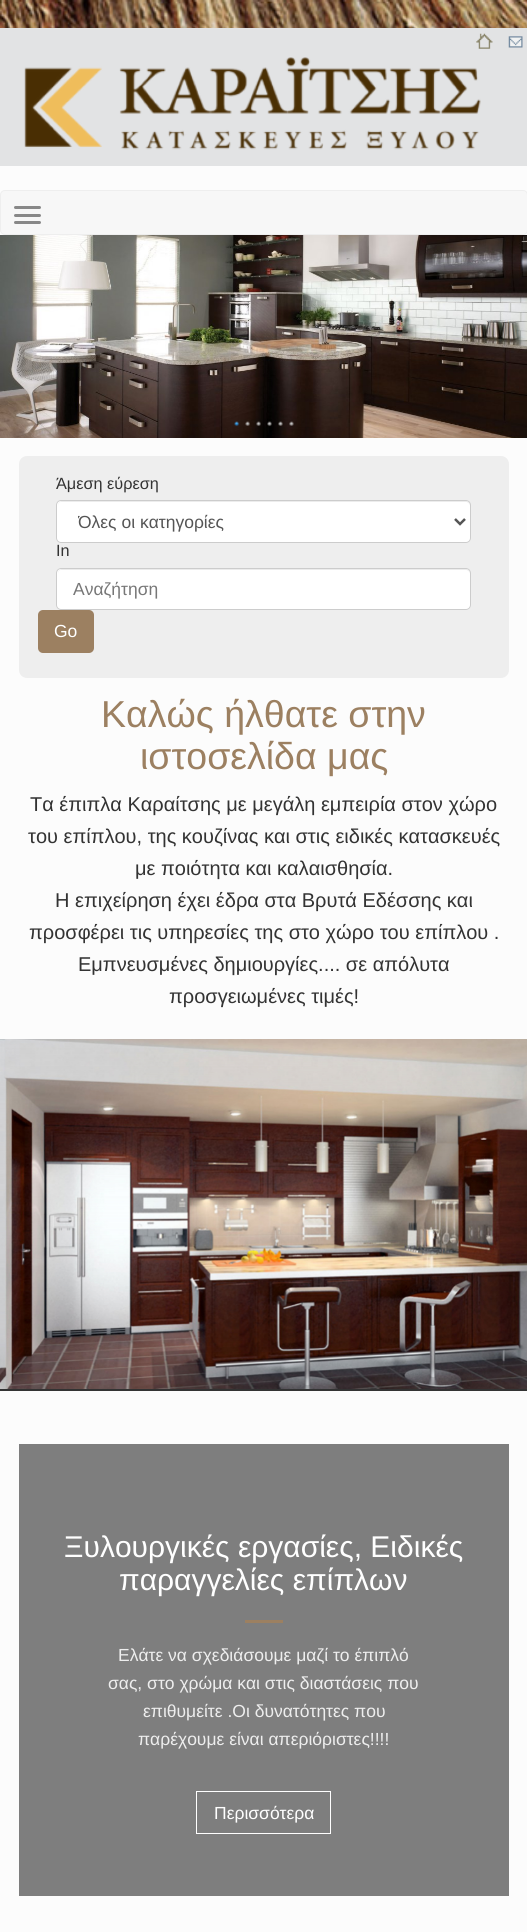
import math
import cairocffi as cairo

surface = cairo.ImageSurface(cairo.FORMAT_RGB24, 527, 1932)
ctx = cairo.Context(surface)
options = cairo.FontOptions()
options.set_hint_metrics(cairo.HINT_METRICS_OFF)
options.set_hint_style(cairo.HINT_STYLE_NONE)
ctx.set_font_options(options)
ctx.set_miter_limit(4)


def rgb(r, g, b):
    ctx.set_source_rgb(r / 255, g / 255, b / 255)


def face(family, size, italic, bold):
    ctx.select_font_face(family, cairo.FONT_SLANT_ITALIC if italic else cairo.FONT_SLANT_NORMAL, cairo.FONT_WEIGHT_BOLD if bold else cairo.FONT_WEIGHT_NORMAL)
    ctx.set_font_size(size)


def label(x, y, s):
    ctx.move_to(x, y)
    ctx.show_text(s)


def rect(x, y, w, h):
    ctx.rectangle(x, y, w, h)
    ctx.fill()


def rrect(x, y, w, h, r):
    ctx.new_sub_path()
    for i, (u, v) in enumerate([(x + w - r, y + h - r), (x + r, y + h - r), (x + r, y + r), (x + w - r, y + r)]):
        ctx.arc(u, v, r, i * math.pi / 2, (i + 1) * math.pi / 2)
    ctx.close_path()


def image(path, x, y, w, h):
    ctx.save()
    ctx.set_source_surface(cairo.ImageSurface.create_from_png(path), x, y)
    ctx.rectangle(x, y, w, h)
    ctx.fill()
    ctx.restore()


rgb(255, 255, 255)
ctx.paint()
image('image0.png', 0, 0, 527, 28)
rgb(252, 252, 252)
rect(0, 166, 527, 1766)
rgb(226, 227, 228)
rect(0, 28, 527, 138)
image('image1.png', 24, 57, 457, 93)
image('image2.png', 476, 33, 17, 16)
image('image3.png', 508, 36, 15, 12)
rgb(247, 247, 247)
rrect(0.5, 190.5, 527, 44, 4.5)
ctx.fill_preserve()
rgb(238, 238, 238)
ctx.set_line_width(1)
ctx.stroke()
rgb(136, 136, 136)
rrect(14, 206, 27, 3, 1.5)
ctx.fill()
rrect(14, 214, 27, 3, 1.5)
ctx.fill()
rrect(14, 221, 27, 3, 1.5)
ctx.fill()
image('image4.png', 0, 235, 527, 203)
image('image5.png', 234, 421, 6, 6)
image('image6.png', 245, 421, 5, 5)
image('image7.png', 256, 421, 5, 5)
image('image8.png', 267, 421, 5, 6)
image('image9.png', 278, 421, 5, 5)
image('image10.png', 289, 421, 5, 5)
rgb(238, 238, 238)
rrect(19, 456, 490, 222, 8)
ctx.fill()
face('Liberation Sans', 16.25, 0, 0)
rgb(51, 51, 51)
label(56, 489, 'Άμεση εύρεση')
rgb(255, 255, 255)
rrect(56, 500, 415, 43, 5)
ctx.fill()
rgb(236, 236, 236)
ctx.new_path()
ctx.move_to(61, 502)
ctx.line_to(466, 502)
ctx.curve_to(468, 502, 470, 504, 470, 506)
ctx.line_to(470, 505)
ctx.curve_to(470, 503, 468, 501, 466, 501)
ctx.line_to(62, 501)
ctx.curve_to(60, 501, 58, 503, 58, 505)
ctx.line_to(58, 506)
ctx.curve_to(58, 504, 59, 502, 61, 502)
ctx.close_path()
ctx.fill()
rrect(56.5, 500.5, 414, 42, 4.5)
rgb(204, 204, 204)
ctx.stroke()
ctx.new_path()
ctx.move_to(455, 519)
ctx.line_to(460, 524)
ctx.line_to(465, 519)
rgb(85, 85, 85)
ctx.set_line_width(2.5)
ctx.stroke()
ctx.save()
ctx.rectangle(78, 510, 357, 23)
ctx.clip()
face('Liberation Sans', 17.5, 0, 0)
label(78, 528, 'Όλες οι κατηγορίες')
ctx.restore()
rgb(51, 51, 51)
label(56, 556, 'In')
rgb(255, 255, 255)
rrect(56, 568, 415, 42, 5)
ctx.fill()
rgb(236, 236, 236)
ctx.new_path()
ctx.move_to(61, 570)
ctx.line_to(466, 570)
ctx.curve_to(468, 570, 470, 572, 470, 574)
ctx.line_to(470, 573)
ctx.curve_to(470, 571, 468, 569, 466, 569)
ctx.line_to(62, 569)
ctx.curve_to(60, 569, 58, 571, 58, 573)
ctx.line_to(58, 574)
ctx.curve_to(58, 572, 59, 570, 61, 570)
ctx.close_path()
ctx.fill()
rrect(56.5, 568.5, 414, 41, 4.5)
rgb(204, 204, 204)
ctx.set_line_width(1)
ctx.stroke()
face('Liberation Sans', 17.5, 0, 0)
rgb(119, 119, 119)
label(73, 595, 'Αναζήτηση')
rgb(156, 128, 97)
rrect(38, 610, 56, 43, 5)
ctx.fill()
rgb(255, 255, 255)
label(54, 637, 'Go')
face('Liberation Sans', 37.5, 0, 0)
rgb(156, 128, 97)
label(101, 727, 'Καλώς ήλθατε στην')
label(140, 769, 'ιστοσελίδα μας')
face('Liberation Sans', 20, 0, 0)
rgb(51, 51, 51)
label(30, 811, 'Τα έπιπλα Καραίτσης με μεγάλη εμπειρία στον χώρο')
label(28, 843, 'του επίπλου, της κουζίνας και στις ειδικές κατασκευές')
label(135, 875, 'με ποιότητα και καλαισθησία.')
label(55, 907, 'Η επιχείρηση έχει έδρα στα Βρυτά Εδέσσης και')
label(29, 939, 'προσφέρει τις υπηρεσίες της στο χώρο του επίπλου .')
label(78, 971, 'Εμπνευσμένες δημιουργίες.... σε απόλυτα')
label(169, 1003, 'προσγειωμένες τιμές!')
image('image11.png', 0, 1039, 527, 350)
rect(0, 1389, 527, 2)
rgb(126, 126, 126)
rect(19, 1444, 490, 452)
face('Liberation Sans', 30, 0, 0)
rgb(255, 255, 255)
label(64, 1557, 'Ξυλουργικές εργασίες, Ειδικές')
label(119, 1590, 'παραγγελίες επίπλων')
rgb(156, 128, 97)
rect(245, 1620, 38, 3)
face('Liberation Sans', 17.5, 0, 0)
rgb(238, 238, 238)
label(118, 1661, 'Ελάτε να σχεδιάσουμε μαζί το έπιπλό')
label(108, 1689, 'σας, στο χρώμα και στις διαστάσεις που')
label(143, 1717, 'επιθυμείτε .Οι δυνατότητες που')
label(138, 1745, 'παρέχουμε είναι απεριόριστες!!!!')
ctx.rectangle(196.5, 1791.5, 134, 42)
rgb(255, 255, 255)
ctx.stroke()
label(214, 1819, 'Περισσότερα')
surface.write_to_png('render.png')
